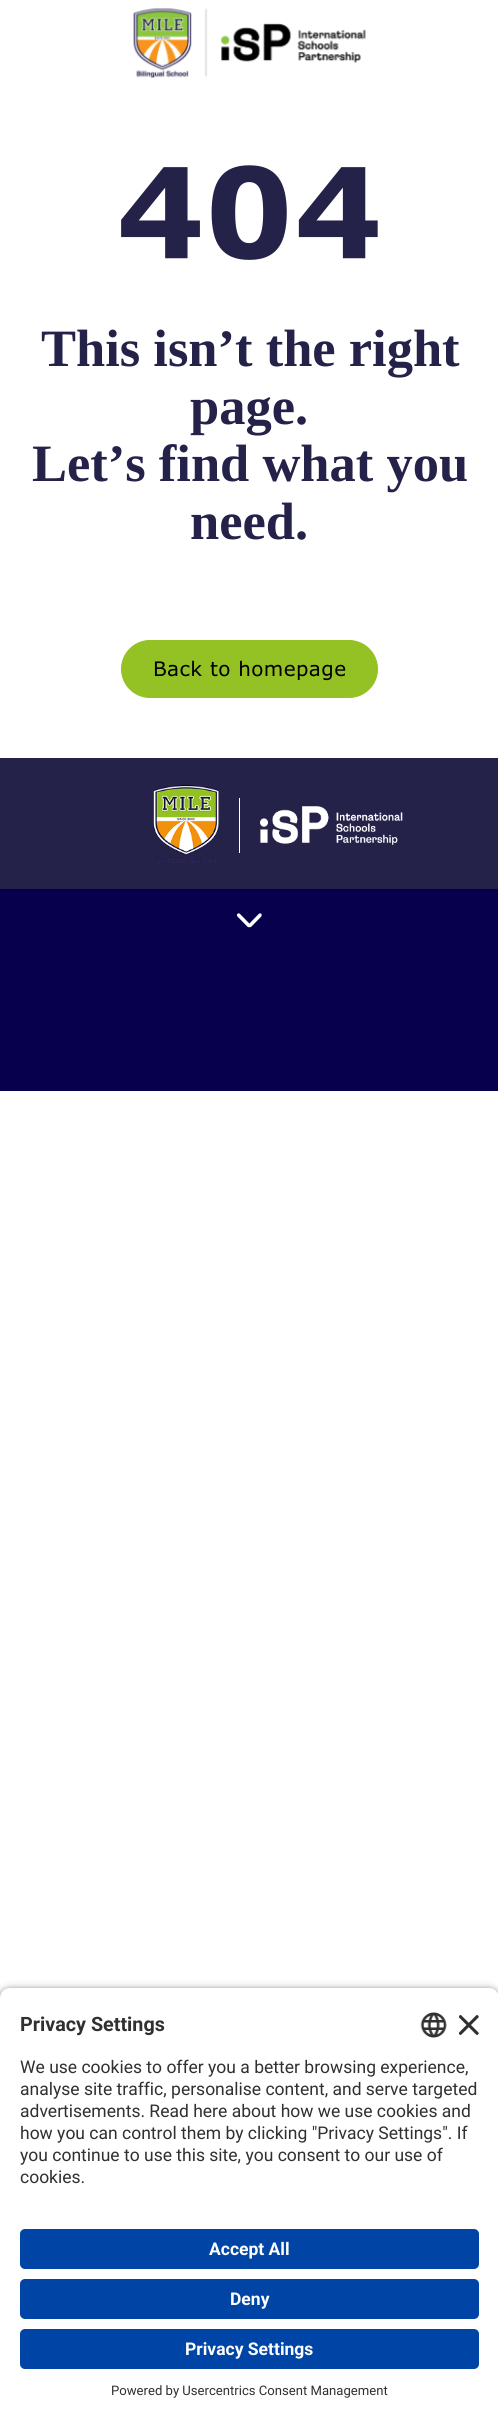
import math
import cairocffi as cairo

surface = cairo.ImageSurface(cairo.FORMAT_RGB24, 498, 2418)
ctx = cairo.Context(surface)
options = cairo.FontOptions()
options.set_hint_metrics(cairo.HINT_METRICS_OFF)
options.set_hint_style(cairo.HINT_STYLE_NONE)
ctx.set_font_options(options)
ctx.set_miter_limit(4)


def rgb(r, g, b):
    ctx.set_source_rgb(r / 255, g / 255, b / 255)


def face(family, size, italic, bold):
    ctx.select_font_face(family, cairo.FONT_SLANT_ITALIC if italic else cairo.FONT_SLANT_NORMAL, cairo.FONT_WEIGHT_BOLD if bold else cairo.FONT_WEIGHT_NORMAL)
    ctx.set_font_size(size)


def label(x, y, s):
    ctx.move_to(x, y)
    ctx.show_text(s)


def tracked(x, y, s, letter, word):
    ctx.move_to(x, y)
    for ch in s:
        ctx.show_text(ch)
        ctx.rel_move_to(letter + word * (ch == ' '), 0)


def rect(x, y, w, h):
    ctx.rectangle(x, y, w, h)
    ctx.fill()


def rrect(x, y, w, h, r):
    ctx.new_sub_path()
    for i, (u, v) in enumerate([(x + w - r, y + h - r), (x + r, y + h - r), (x + r, y + r), (x + w - r, y + r)]):
        ctx.arc(u, v, r, i * math.pi / 2, (i + 1) * math.pi / 2)
    ctx.close_path()


def soft_shadow(x, y, w, h, r, blur, alpha):
    ctx.push_group_with_content(cairo.CONTENT_ALPHA)
    ctx.set_operator(cairo.OPERATOR_SOURCE)
    for i in range(15, -16, -2):
        e = blur * i / 6
        if min(w, h) + 2 * e > 0:
            ctx.set_source_rgba(0, 0, 0, alpha * math.erfc((i - 1) / 8.5) / 2)
            rrect(x - e, y - e, w + 2 * e, h + 2 * e, max(0, min(r + e + blur * .6, min(w, h) / 2 + e)))
            ctx.fill()
    ctx.mask(ctx.pop_group())


def image(path, x, y, w, h):
    ctx.save()
    ctx.set_source_surface(cairo.ImageSurface.create_from_png(path), x, y)
    ctx.rectangle(x, y, w, h)
    ctx.fill()
    ctx.restore()


rgb(255, 255, 255)
ctx.paint()
image('image0.png', 133, 8, 233, 70)
face('Verdana', 125, 0, 1)
rgb(37, 34, 74)
label(116, 258, '404')
face('Liberation Serif', 52.5, 0, 1)
label(41, 366, 'This isn’t the right')
label(190, 424, 'page.')
label(32, 481, 'Let’s find what you')
label(190, 539, 'need.')
rgb(148, 193, 35)
rrect(121.5, 640.5, 256, 57, 28.5)
ctx.fill_preserve()
ctx.set_line_width(1)
ctx.stroke()
face('Verdana', 20, 0, 0)
rgb(0, 0, 0)
tracked(153, 676, 'Back to homepage', 0.4, 0)
rgb(37, 34, 74)
rect(0, 758, 498, 131)
image('image1.png', 153, 784, 67, 81)
rgb(255, 255, 255)
rect(239, 798, 1, 55)
image('image2.png', 260, 806, 143, 39)
rgb(6, 0, 77)
rect(0, 889, 498, 202)
image('image3.png', 237, 913, 25, 15)
rgb(0, 0, 0)
soft_shadow(0, 1991, 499, 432, 10, 4.5, 0.8)
rgb(255, 255, 255)
ctx.new_path()
ctx.move_to(10, 1988)
ctx.line_to(489, 1988)
ctx.curve_to(494.5, 1988, 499, 1992.5, 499, 1998)
ctx.line_to(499, 2214)
ctx.line_to(0, 2214)
ctx.line_to(0, 1998)
ctx.curve_to(0, 1992.5, 4.5, 1988, 10, 1988)
ctx.close_path()
ctx.fill()
face('Roboto', 19.75, 0, 1)
rgb(48, 48, 48)
label(20, 2031, 'Privacy Settings')
image('image4.png', 420, 2012, 27, 26)
image('image5.png', 459, 2015, 20, 20)
face('Roboto', 17.5, 0, 0)
label(20, 2073, 'We use cookies to offer you a better browsing experience,')
label(20, 2095, 'analyse site traffic, personalise content, and serve targeted')
label(20, 2117, 'advertisements. Read here about how we use cookies and')
label(20, 2139, 'how you can control them by clicking "Privacy Settings". If')
label(20, 2161, 'you continue to use this site, you consent to our use of')
label(20, 2183, 'cookies.')
rgb(255, 255, 255)
rect(0, 2214, 498, 204)
rgb(0, 69, 165)
rrect(20, 2229, 459, 40, 5)
ctx.fill()
face('Roboto', 17.5, 0, 1)
rgb(255, 255, 255)
label(209, 2255, 'Accept All')
rgb(0, 69, 165)
rrect(20, 2279, 459, 40, 5)
ctx.fill()
rgb(255, 255, 255)
label(230, 2305, 'Deny')
rgb(0, 69, 165)
rrect(20, 2329, 459, 40, 5)
ctx.fill()
rgb(255, 255, 255)
label(185, 2355, 'Privacy Settings')
face('Roboto', 13.1, 0, 0)
rgb(48, 48, 48)
label(111, 2395, 'Powered by Usercentrics Consent Management')
surface.write_to_png('render.png')
